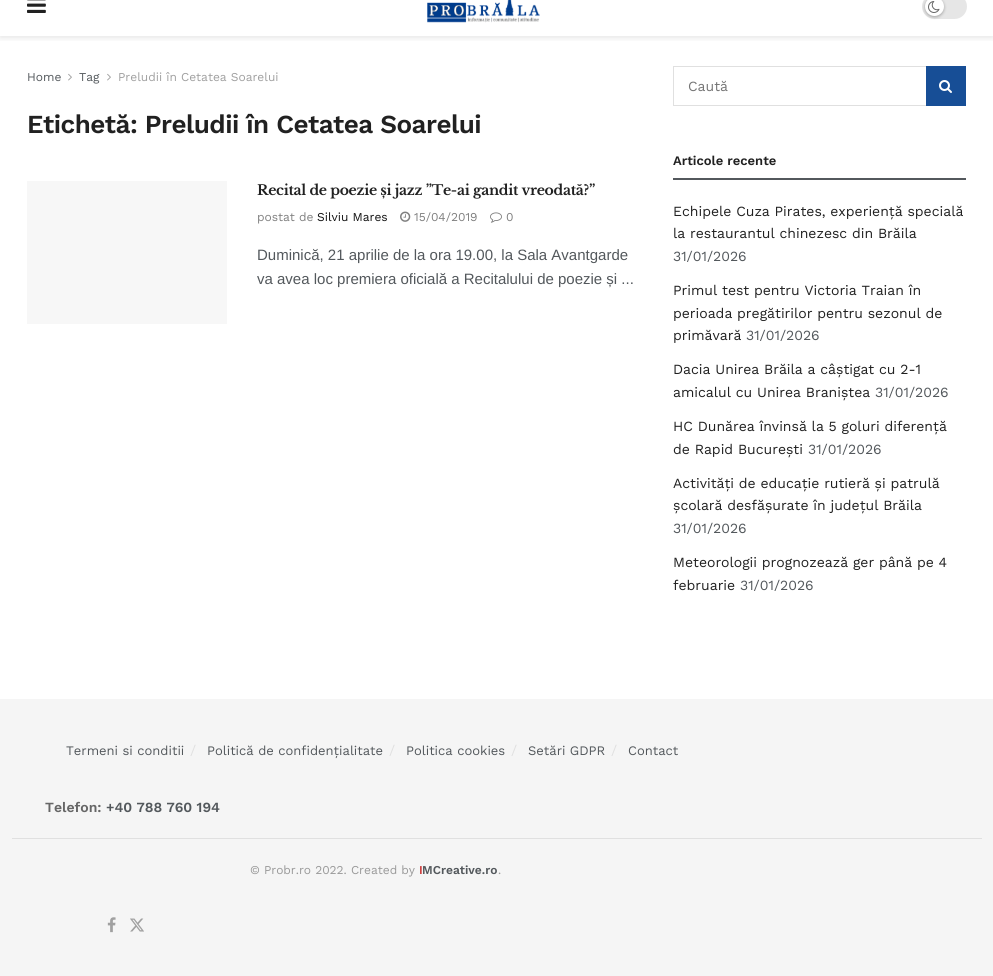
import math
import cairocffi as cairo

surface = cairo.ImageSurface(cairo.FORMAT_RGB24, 993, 976)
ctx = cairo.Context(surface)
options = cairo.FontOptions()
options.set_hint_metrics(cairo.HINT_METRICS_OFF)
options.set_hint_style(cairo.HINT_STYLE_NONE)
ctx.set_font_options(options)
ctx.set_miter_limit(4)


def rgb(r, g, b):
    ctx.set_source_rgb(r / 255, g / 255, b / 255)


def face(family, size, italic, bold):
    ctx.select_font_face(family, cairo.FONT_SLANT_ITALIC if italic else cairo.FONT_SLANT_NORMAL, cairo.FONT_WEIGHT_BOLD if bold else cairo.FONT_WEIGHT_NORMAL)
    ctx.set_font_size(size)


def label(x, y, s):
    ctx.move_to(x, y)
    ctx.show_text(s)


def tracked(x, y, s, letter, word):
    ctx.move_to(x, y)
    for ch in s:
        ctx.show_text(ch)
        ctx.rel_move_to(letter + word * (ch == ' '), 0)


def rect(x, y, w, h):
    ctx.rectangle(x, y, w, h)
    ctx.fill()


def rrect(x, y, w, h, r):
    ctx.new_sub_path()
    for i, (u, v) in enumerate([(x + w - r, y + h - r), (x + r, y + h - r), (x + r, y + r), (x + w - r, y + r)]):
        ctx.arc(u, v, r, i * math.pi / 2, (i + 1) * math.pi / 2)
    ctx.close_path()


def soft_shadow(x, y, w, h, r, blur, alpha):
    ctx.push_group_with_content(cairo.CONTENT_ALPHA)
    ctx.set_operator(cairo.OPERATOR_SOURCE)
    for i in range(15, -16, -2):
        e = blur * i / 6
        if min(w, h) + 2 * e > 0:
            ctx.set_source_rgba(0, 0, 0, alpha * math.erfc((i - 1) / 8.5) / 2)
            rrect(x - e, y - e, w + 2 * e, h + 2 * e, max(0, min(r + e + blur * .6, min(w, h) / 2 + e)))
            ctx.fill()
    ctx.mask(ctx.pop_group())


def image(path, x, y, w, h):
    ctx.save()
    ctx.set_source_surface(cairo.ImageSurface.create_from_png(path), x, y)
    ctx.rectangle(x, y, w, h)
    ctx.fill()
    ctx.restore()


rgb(255, 255, 255)
ctx.paint()
ctx.save()
ctx.rectangle(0, 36, 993, 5)
ctx.clip()
rgb(0, 0, 0)
soft_shadow(0, -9, 993, 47, 0, 3, 0.1)
ctx.restore()
image('image0.png', 27, 0, 19, 13)
image('image1.png', 427, 0, 113, 23)
rgb(230, 230, 230)
rrect(922, -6, 45, 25, 12.5)
ctx.fill()
rgb(0, 0, 0)
soft_shadow(925, -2, 19, 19, 9.5, 1.5, 0.3)
rgb(255, 255, 255)
ctx.arc(934.5, 6.5, 9.5, 0, 2 * math.pi)
ctx.fill()
image('image2.png', 928, 1, 12, 12)
face('Work Sans', 12, 0, 0)
rgb(83, 88, 92)
label(27, 81, 'Home')
image('image3.png', 68, 73, 4, 8)
label(79, 81, 'Tag')
image('image3.png', 107, 73, 4, 8)
rgb(160, 160, 160)
label(118, 81, 'Preludii în Cetatea Soarelui')
face('Work Sans SemiBold', 26, 0, 0)
rgb(33, 33, 33)
tracked(27, 133, 'Etichetă: Preludii în Cetatea Soarelui', -0.5, 0)
rgb(247, 247, 247)
rect(27, 181, 200, 143)
face('Libre Baskerville', 14, 0, 1)
rgb(33, 33, 33)
tracked(257, 195, 'Recital de poezie și jazz ”Te-ai gandit vreodată?”', -0.28, 0)
face('Work Sans', 12, 0, 0)
rgb(128, 128, 128)
label(257, 221, 'postat de')
rgb(17, 17, 17)
label(317, 221, 'Silviu Mares')
image('image4.png', 400, 211, 11, 11)
rgb(128, 128, 128)
label(414, 221, '15/04/2019')
image('image5.png', 490, 212, 12, 11)
label(506, 221, '0')
face('Liberation Sans', 15, 0, 0)
rgb(83, 88, 92)
label(257, 260, 'Duminică, 21 aprilie de la ora 19.00, la Sala Avantgarde')
label(257, 284, 'va avea loc premiera oficială a Recitalului de poezie și ...')
ctx.rectangle(673.5, 66.5, 292, 39)
rgb(224, 224, 224)
ctx.set_line_width(1)
ctx.stroke()
face('Work Sans', 14, 0, 0)
rgb(117, 117, 117)
label(688, 91, 'Caută')
rgb(23, 78, 150)
rect(926, 66, 40, 40)
image('image6.png', 939, 80, 13, 13)
rgb(83, 88, 92)
rect(673, 178, 293, 2)
face('Work Sans SemiBold', 13, 0, 0)
rgb(33, 33, 33)
label(673, 165, 'Articole recente')
face('Work Sans', 14, 0, 0)
label(673, 216, 'Echipele Cuza Pirates, experiență specială')
label(673, 238, 'la restaurantul chinezesc din Brăila')
rgb(83, 88, 92)
label(673, 261, '31/01/2026')
rgb(33, 33, 33)
label(673, 295, 'Primul test pentru Victoria Traian în')
label(673, 318, 'perioada pregătirilor pentru sezonul de')
label(673, 340, 'primăvară')
rgb(83, 88, 92)
label(746, 340, '31/01/2026')
rgb(33, 33, 33)
label(673, 374, 'Dacia Unirea Brăila a câștigat cu 2-1')
label(673, 397, 'amicalul cu Unirea Braniștea')
rgb(83, 88, 92)
label(875, 397, '31/01/2026')
rgb(33, 33, 33)
label(673, 431, 'HC Dunărea învinsă la 5 goluri diferență')
label(673, 454, 'de Rapid București')
rgb(83, 88, 92)
label(808, 454, '31/01/2026')
rgb(33, 33, 33)
label(673, 488, 'Activități de educație rutieră și patrulă')
label(673, 510, 'școlară desfășurate în județul Brăila')
rgb(83, 88, 92)
label(673, 533, '31/01/2026')
rgb(33, 33, 33)
label(673, 567, 'Meteorologii prognozează ger până pe 4')
label(673, 590, 'februarie')
rgb(83, 88, 92)
label(740, 590, '31/01/2026')
rgb(245, 245, 245)
rect(0, 699, 993, 277)
face('Work Sans', 13, 0, 0)
rgb(83, 88, 92)
label(66, 755, 'Termeni si conditii')
face('Work Sans', 14, 0, 0)
rgb(224, 224, 224)
label(190, 755, '/')
face('Work Sans', 13, 0, 0)
rgb(83, 88, 92)
label(207, 755, 'Politică de confidențialitate')
face('Work Sans', 14, 0, 0)
rgb(224, 224, 224)
label(389, 755, '/')
face('Work Sans', 13, 0, 0)
rgb(83, 88, 92)
label(406, 755, 'Politica cookies')
face('Work Sans', 14, 0, 0)
rgb(224, 224, 224)
label(511, 755, '/')
face('Work Sans', 13, 0, 0)
rgb(83, 88, 92)
label(528, 755, 'Setări GDPR')
face('Work Sans', 14, 0, 0)
rgb(224, 224, 224)
label(611, 755, '/')
face('Work Sans', 13, 0, 0)
rgb(83, 88, 92)
label(628, 755, 'Contact')
face('Work Sans SemiBold', 14, 0, 0)
rgb(102, 102, 102)
label(45, 812, 'Telefon:')
rgb(83, 88, 92)
label(106, 812, '+40 788 760 194')
rgb(224, 224, 224)
rect(12, 838, 970, 1)
face('Work Sans', 12, 0, 0)
rgb(153, 153, 153)
label(250, 874, '© Probr.ro 2022. Created by')
face('Work Sans SemiBold', 12, 0, 0)
rgb(205, 62, 62)
label(419, 874, 'I')
rgb(83, 88, 92)
label(422, 874, 'MCreative.ro')
face('Work Sans', 12, 0, 0)
rgb(153, 153, 153)
label(498, 874, '.')
image('image7.png', 107, 917, 9, 16)
image('image8.png', 130, 918, 14, 14)
surface.write_to_png('render.png')
